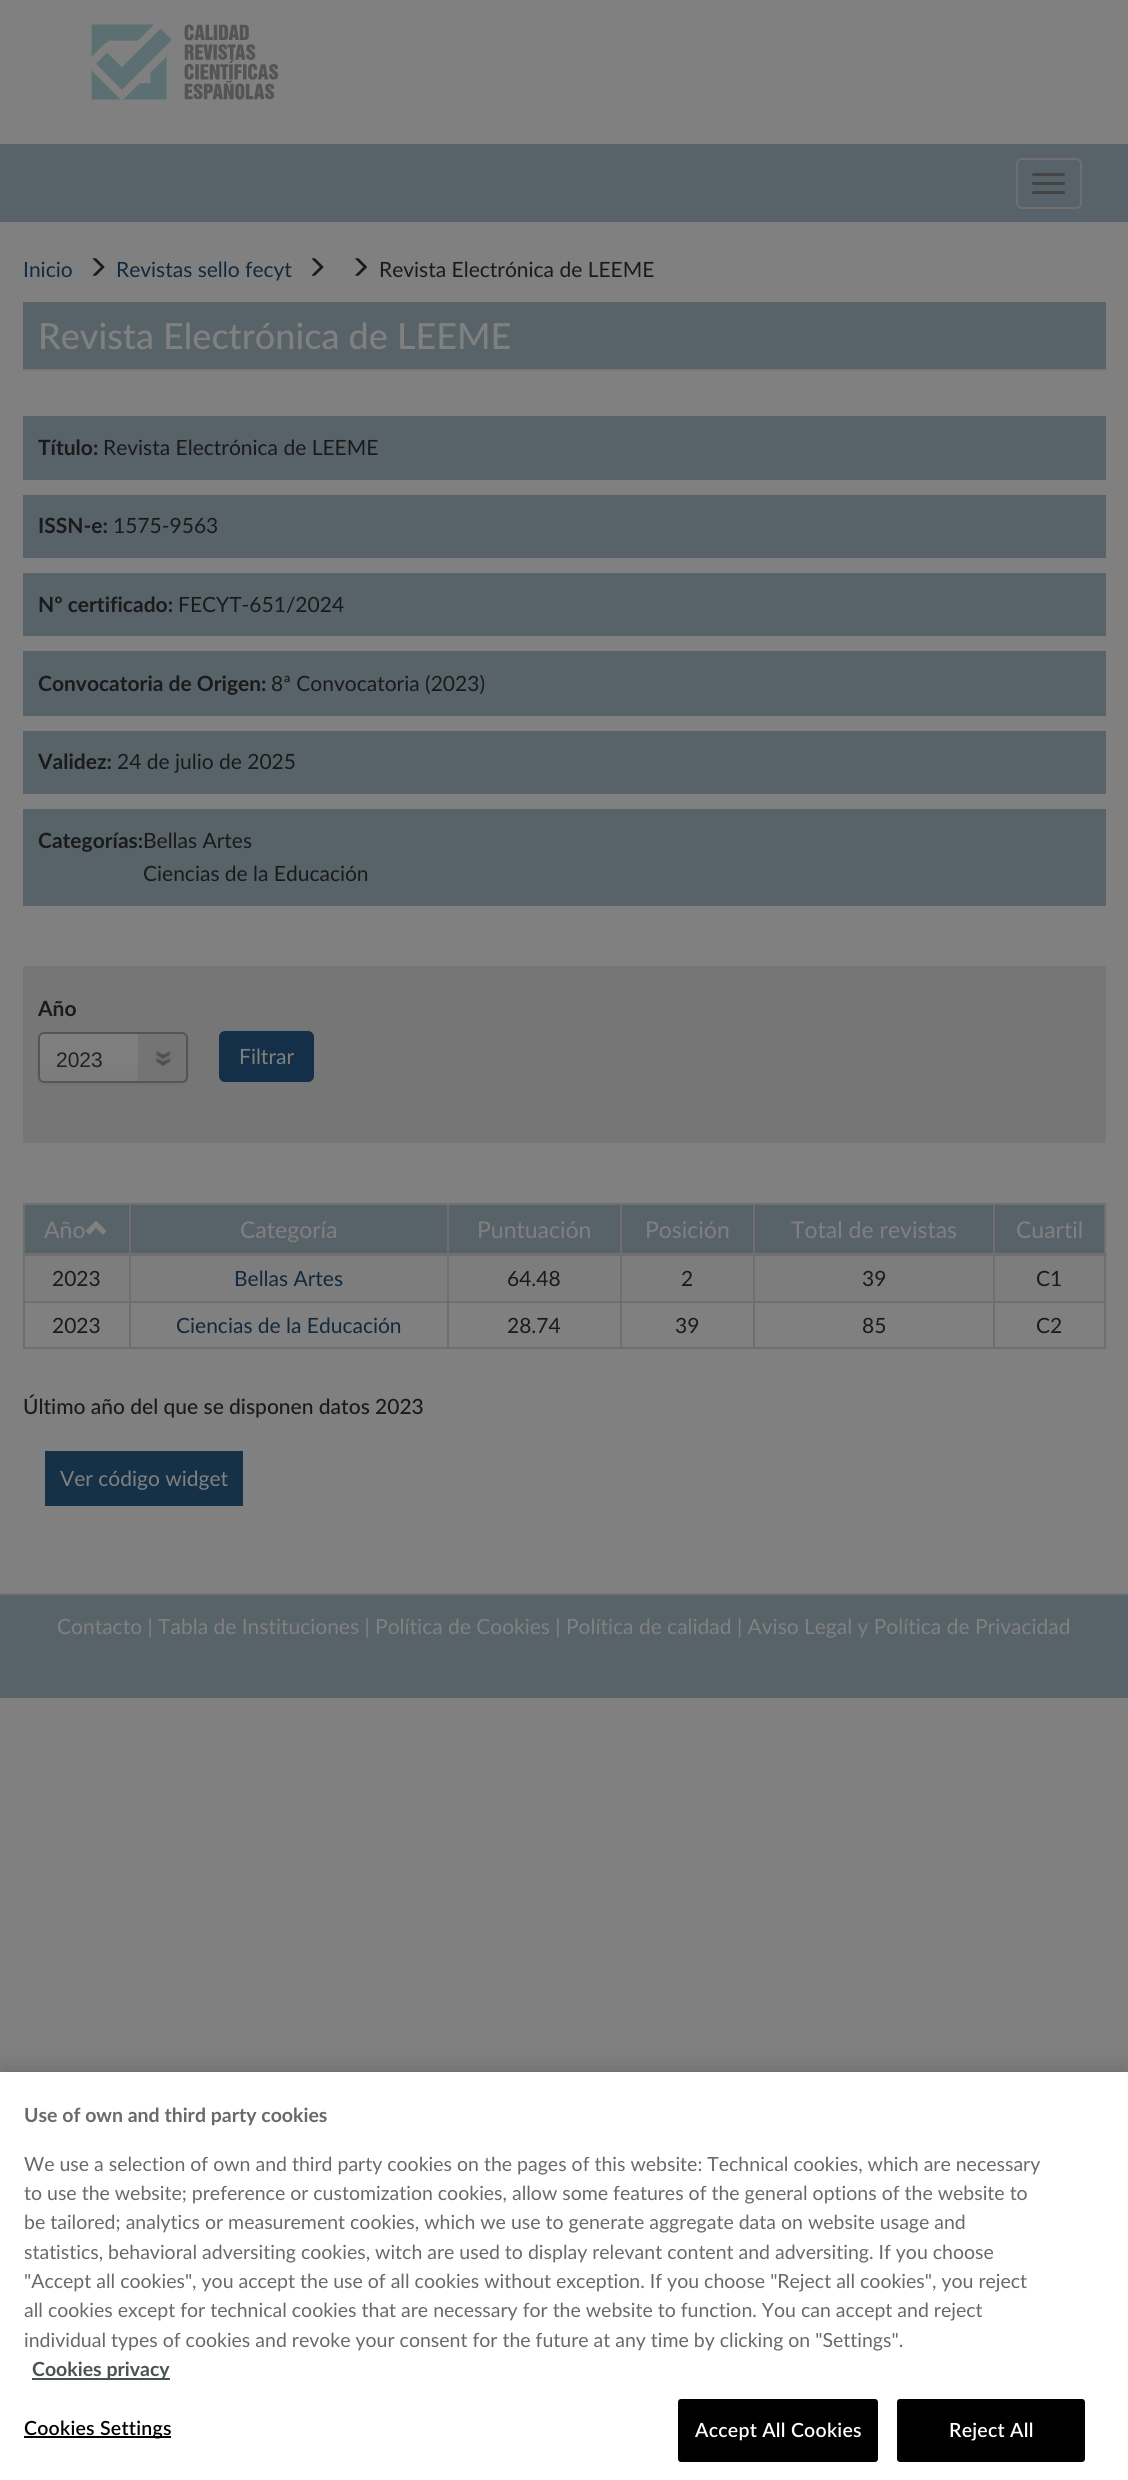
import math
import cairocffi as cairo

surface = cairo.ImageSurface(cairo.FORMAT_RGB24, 1128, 2480)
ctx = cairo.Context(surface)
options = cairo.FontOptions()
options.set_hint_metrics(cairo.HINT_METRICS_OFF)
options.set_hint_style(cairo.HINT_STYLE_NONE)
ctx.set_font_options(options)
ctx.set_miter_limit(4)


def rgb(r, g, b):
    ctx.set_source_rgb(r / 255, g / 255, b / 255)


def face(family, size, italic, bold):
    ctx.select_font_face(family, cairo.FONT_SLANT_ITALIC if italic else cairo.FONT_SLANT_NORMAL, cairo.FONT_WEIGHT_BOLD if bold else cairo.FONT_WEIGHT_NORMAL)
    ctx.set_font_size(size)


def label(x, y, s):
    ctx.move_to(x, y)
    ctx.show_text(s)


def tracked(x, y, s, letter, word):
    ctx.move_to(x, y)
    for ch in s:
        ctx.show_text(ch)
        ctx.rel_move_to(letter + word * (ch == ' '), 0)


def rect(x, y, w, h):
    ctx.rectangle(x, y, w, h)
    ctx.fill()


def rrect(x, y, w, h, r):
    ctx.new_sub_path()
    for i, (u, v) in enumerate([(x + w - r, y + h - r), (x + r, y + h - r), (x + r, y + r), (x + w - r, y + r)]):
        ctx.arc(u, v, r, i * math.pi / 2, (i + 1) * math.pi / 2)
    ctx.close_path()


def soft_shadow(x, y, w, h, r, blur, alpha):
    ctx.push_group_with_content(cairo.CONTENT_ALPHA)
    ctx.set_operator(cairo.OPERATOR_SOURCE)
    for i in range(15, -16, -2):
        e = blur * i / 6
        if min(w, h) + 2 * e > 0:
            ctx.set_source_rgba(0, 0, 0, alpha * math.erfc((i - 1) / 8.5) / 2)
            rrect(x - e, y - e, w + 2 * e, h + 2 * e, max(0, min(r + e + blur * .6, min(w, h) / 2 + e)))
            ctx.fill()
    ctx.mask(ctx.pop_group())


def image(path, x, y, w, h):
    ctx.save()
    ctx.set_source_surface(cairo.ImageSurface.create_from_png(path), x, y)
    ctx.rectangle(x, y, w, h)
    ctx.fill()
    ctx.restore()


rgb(128, 128, 128)
ctx.paint()
image('image0.png', 91, 24, 188, 76)
rgb(87, 98, 105)
rect(0, 144, 1128, 78)
rrect(1017, 159, 64, 49, 5)
rgb(111, 111, 111)
ctx.stroke()
rgb(68, 68, 68)
rrect(1032, 173, 33, 3, 1.5)
ctx.fill()
rrect(1032, 182, 33, 3, 1.5)
ctx.fill()
rrect(1032, 191, 33, 3, 1.5)
ctx.fill()
face('Lato', 21, 0, 0)
rgb(18, 41, 62)
label(23, 277, 'Inicio')
image('image1.png', 92, 258, 13, 18)
label(116, 277, 'Revistas sello fecyt')
image('image1.png', 311, 258, 13, 18)
image('image2.png', 355, 258, 12, 18)
rgb(26, 26, 26)
label(379, 277, 'Revista Electrónica de LEEME')
rgb(87, 98, 105)
rect(23, 302, 1083, 67)
rgb(119, 119, 119)
rect(23, 369, 1083, 2)
face('Lato Medium', 36, 0, 0)
rgb(128, 128, 128)
label(38, 349, 'Revista Electrónica de LEEME')
rgb(87, 98, 105)
rect(23, 416, 1083, 64)
face('Lato', 21, 0, 1)
rgb(26, 26, 26)
label(38, 455, 'Título:')
face('Lato', 21, 0, 0)
label(103, 455, 'Revista Electrónica de LEEME')
rgb(87, 98, 105)
rect(23, 495, 1083, 63)
face('Lato', 21, 0, 1)
rgb(26, 26, 26)
label(38, 533, 'ISSN-e:')
face('Lato', 21, 0, 0)
label(113, 533, '1575-9563')
rgb(87, 98, 105)
rect(23, 573, 1083, 63)
face('Lato', 21, 0, 1)
rgb(26, 26, 26)
label(38, 612, 'Nº certificado:')
face('Lato', 21, 0, 0)
label(178, 612, 'FECYT-651/2024')
rgb(87, 98, 105)
rect(23, 651, 1083, 65)
face('Lato', 21, 0, 1)
rgb(26, 26, 26)
label(38, 691, 'Convocatoria de Origen:')
face('Lato', 21, 0, 0)
label(271, 691, '8ª Convocatoria (2023)')
rgb(87, 98, 105)
rect(23, 731, 1083, 63)
face('Lato', 21, 0, 1)
rgb(26, 26, 26)
label(38, 769, 'Validez:')
face('Lato', 21, 0, 0)
label(117, 769, '24 de julio de 2025')
rgb(87, 98, 105)
rect(23, 809, 1083, 97)
face('Lato', 21, 0, 1)
rgb(26, 26, 26)
label(38, 848, 'Categorías:')
face('Lato', 21, 0, 0)
label(143, 848, 'Bellas Artes')
label(143, 881, 'Ciencias de la Educación')
rgb(119, 118, 118)
rrect(23, 966, 1083, 177, 1.5)
ctx.fill()
face('Lato', 21, 0, 1)
rgb(26, 26, 26)
label(38, 1016, 'Año')
rgb(115, 115, 115)
ctx.new_path()
ctx.move_to(183, 1032)
ctx.curve_to(185, 1033, 188, 1035, 188, 1038)
ctx.line_to(188, 1077)
ctx.curve_to(188, 1080, 185, 1083, 181, 1083)
ctx.line_to(44, 1083)
ctx.curve_to(40, 1083, 38, 1080, 38, 1077)
ctx.line_to(38, 1038)
ctx.curve_to(38, 1035, 40, 1033, 42, 1032)
ctx.curve_to(39, 1033, 36, 1036, 36, 1040)
ctx.line_to(36, 1078)
ctx.curve_to(36, 1082, 40, 1086, 44, 1086)
ctx.line_to(181, 1086)
ctx.curve_to(185, 1086, 189, 1082, 189, 1078)
ctx.line_to(189, 1040)
ctx.curve_to(189, 1036, 186, 1033, 183, 1032)
ctx.close_path()
ctx.fill()
image('image3.png', 37, 1032, 150, 51)
rrect(39, 1033, 148, 49, 5)
rgb(85, 85, 85)
ctx.stroke()
face('Liberation Sans', 21, 0, 0)
rgb(34, 34, 34)
label(56, 1067, '2023')
rgb(20, 48, 72)
rrect(220, 1032, 93, 49, 5)
ctx.fill_preserve()
ctx.stroke()
face('Lato', 21, 0, 0)
rgb(128, 128, 128)
label(239, 1064, 'Filtrar')
rgb(111, 111, 111)
rect(23, 1203, 1083, 2)
rect(1104, 1203, 2, 146)
rect(23, 1347, 1083, 2)
rect(23, 1203, 2, 146)
rgb(87, 98, 105)
rect(25, 1205, 104, 48)
face('Lato', 23, 0, 0)
rgb(128, 128, 128)
label(44, 1238, 'Año')
ctx.new_path()
ctx.move_to(106.5, 1231)
ctx.line_to(103, 1235)
ctx.line_to(96, 1228)
ctx.line_to(89.5, 1235)
ctx.line_to(85.5, 1231)
ctx.line_to(96, 1220.5)
ctx.close_path()
ctx.fill()
rgb(87, 98, 105)
rect(131, 1205, 316, 48)
rgb(128, 128, 128)
label(240, 1238, 'Categoría')
rgb(87, 98, 105)
rect(449, 1205, 171, 48)
rgb(128, 128, 128)
label(477, 1238, 'Puntuación')
rgb(87, 98, 105)
rect(622, 1205, 131, 48)
rgb(128, 128, 128)
label(645, 1238, 'Posición')
rgb(87, 98, 105)
rect(755, 1205, 238, 48)
rgb(128, 128, 128)
label(791, 1238, 'Total de revistas')
rgb(87, 98, 105)
rect(995, 1205, 109, 48)
rgb(125, 125, 125)
rect(25, 1256, 1079, 45)
rgb(111, 111, 111)
rect(993, 1301, 2, 48)
rect(993, 1301, 113, 2)
rect(993, 1203, 2, 99)
rect(753, 1301, 2, 48)
rect(753, 1301, 242, 2)
rect(753, 1203, 2, 99)
rect(620, 1301, 2, 48)
rect(620, 1301, 135, 2)
rect(620, 1203, 2, 99)
rect(447, 1301, 2, 48)
rect(447, 1301, 174, 2)
rect(447, 1203, 2, 99)
rect(129, 1301, 2, 48)
rect(129, 1301, 320, 2)
rect(129, 1203, 2, 99)
rect(23, 1253, 1084, 3)
rgb(128, 128, 128)
label(1016, 1238, 'Cuartil')
rgb(111, 111, 111)
rect(23, 1301, 108, 2)
face('Lato', 21, 0, 0)
rgb(26, 26, 26)
label(52, 1286, '2023')
rgb(18, 41, 62)
label(234, 1286, 'Bellas Artes')
rgb(26, 26, 26)
label(507, 1286, '64.48')
label(681, 1286, '2')
label(862, 1286, '39')
label(1036, 1286, 'C1')
label(52, 1333, '2023')
rgb(18, 41, 62)
label(176, 1333, 'Ciencias de la Educación')
rgb(26, 26, 26)
label(507, 1333, '28.74')
label(675, 1333, '39')
label(862, 1333, '85')
label(1036, 1333, 'C2')
face('Lato Medium', 21, 0, 0)
label(23, 1414, 'Último año del que se disponen datos 2023')
rgb(20, 49, 72)
rect(45, 1451, 198, 55)
face('Lato', 21, 0, 0)
rgb(128, 128, 128)
label(60, 1486, 'Ver código widget')
rgb(87, 98, 105)
rect(0, 1595, 1128, 103)
rgb(115, 115, 115)
rect(0, 1593, 1128, 2)
rgb(128, 128, 128)
label(57, 1634, 'Contacto | Tabla de Instituciones | Política de Cookies | Política de calidad | Aviso Legal y Política de Privacidad')
rgb(0, 0, 0)
soft_shadow(0, 2072, 1128, 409, 0, 13.5, 0.2)
rgb(255, 255, 255)
rect(0, 2072, 1128, 408)
face('Lato', 19.5, 0, 1)
rgb(105, 105, 105)
label(24, 2122, 'Use of own and third party cookies')
face('Lato', 19.5, 0, 0)
label(24, 2171, 'We use a selection of own and third party cookies on the pages of this website: Technical cookies, which are necessary')
label(24, 2200, 'to use the website; preference or customization cookies, allow some features of the general options of the website to')
label(24, 2229, 'be tailored; analytics or measurement cookies, which we use to generate aggregate data on website usage and')
label(24, 2259, 'statistics, behavioral adversiting cookies, witch are used to display relevant content and adversiting. If you choose')
label(24, 2288, '"Accept all cookies", you accept the use of all cookies without exception. If you choose "Reject all cookies", you reject')
label(24, 2317, 'all cookies except for technical cookies that are necessary for the website to function. You can accept and reject')
label(24, 2347, 'individual types of cookies and revoke your consent for the future at any time by clicking on "Settings".')
rgb(74, 83, 84)
rect(32, 2378, 138, 2)
face('Lato', 19.5, 0, 1)
label(32, 2376, 'Cookies privacy')
rgb(0, 0, 0)
rect(24, 2436, 147, 2)
face('Lato SemiBold', 19.5, 0, 0)
tracked(24, 2435, 'Cookies Settings', 0.25, 0)
rrect(679, 2400, 198, 61, 2)
ctx.fill_preserve()
ctx.stroke()
rgb(255, 255, 255)
tracked(695, 2437, 'Accept All Cookies', 0.25, 0)
rgb(0, 0, 0)
rrect(898, 2400, 186, 61, 2)
ctx.fill_preserve()
ctx.stroke()
rgb(255, 255, 255)
tracked(949, 2437, 'Reject All', 0.25, 0)
surface.write_to_png('render.png')
